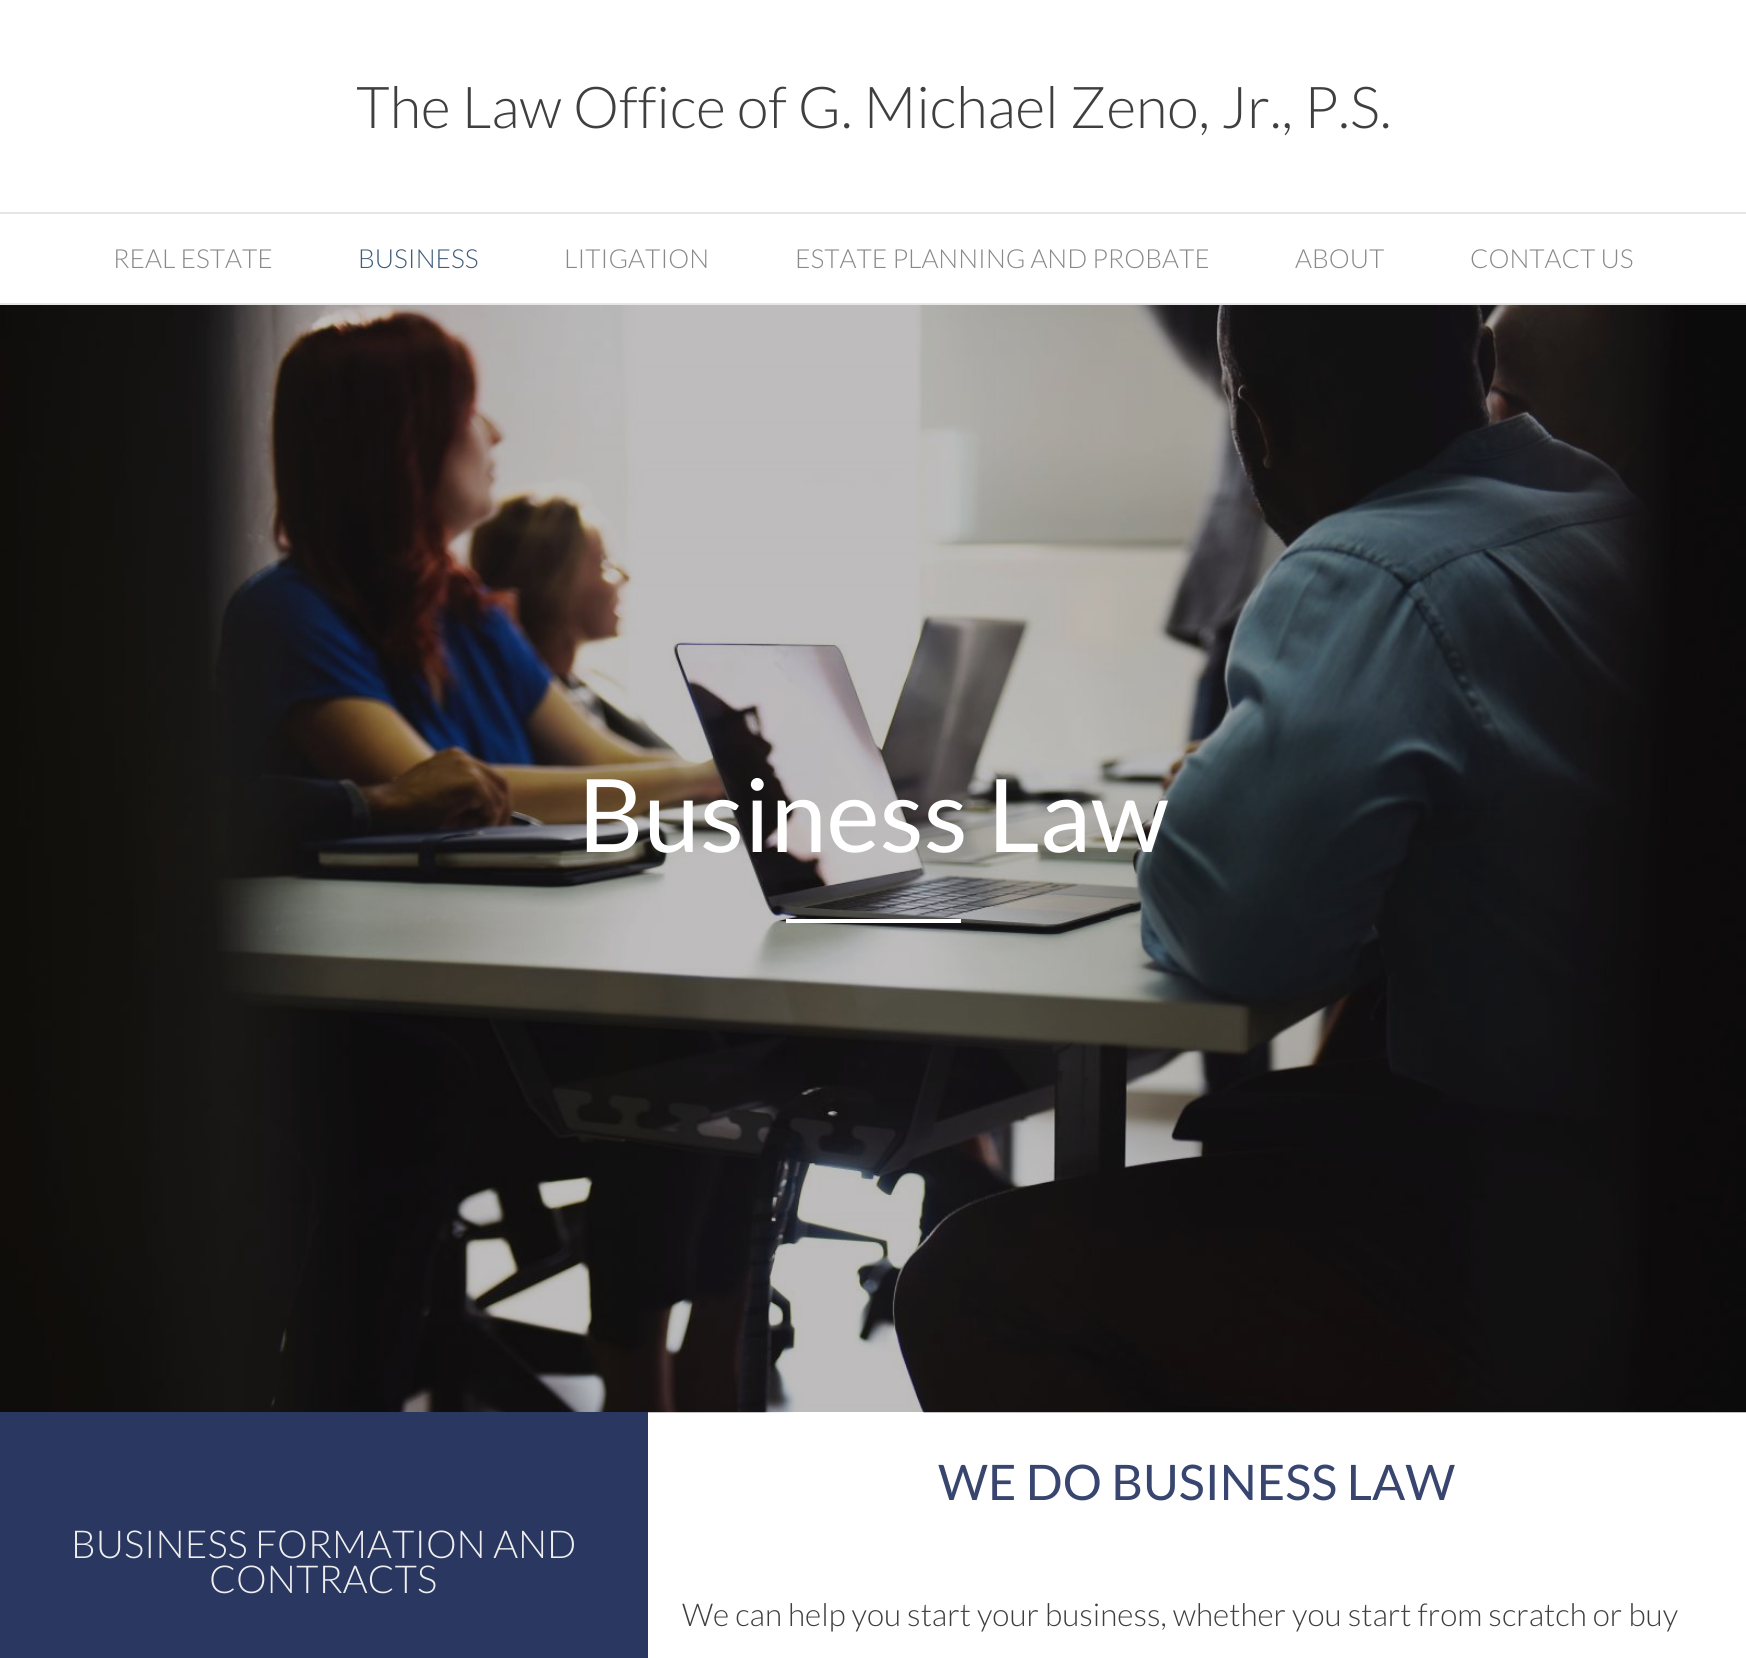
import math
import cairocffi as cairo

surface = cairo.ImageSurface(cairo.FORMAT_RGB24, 1746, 1658)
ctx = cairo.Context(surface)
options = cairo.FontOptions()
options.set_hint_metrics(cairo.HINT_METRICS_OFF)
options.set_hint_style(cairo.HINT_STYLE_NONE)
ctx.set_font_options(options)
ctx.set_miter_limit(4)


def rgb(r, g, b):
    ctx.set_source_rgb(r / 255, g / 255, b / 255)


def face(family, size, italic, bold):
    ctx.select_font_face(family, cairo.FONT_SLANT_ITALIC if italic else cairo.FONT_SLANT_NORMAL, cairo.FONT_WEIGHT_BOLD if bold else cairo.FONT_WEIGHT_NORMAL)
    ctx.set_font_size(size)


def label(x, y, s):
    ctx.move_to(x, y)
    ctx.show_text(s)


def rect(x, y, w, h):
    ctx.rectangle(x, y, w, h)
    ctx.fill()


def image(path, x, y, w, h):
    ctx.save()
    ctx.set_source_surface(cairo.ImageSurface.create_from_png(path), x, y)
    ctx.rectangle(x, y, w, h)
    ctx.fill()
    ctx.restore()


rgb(255, 255, 255)
ctx.paint()
face('Lato Light', 57.75, 0, 0)
rgb(63, 63, 63)
label(356, 128, 'The Law Office of G. Michael Zeno, Jr., P.S.')
rgb(230, 230, 230)
rect(0, 212, 1746, 2)
rect(0, 303, 1746, 2)
face('Lato Light', 26.25, 0, 0)
rgb(137, 137, 137)
label(113, 268, 'REAL ESTATE')
rgb(64, 94, 124)
label(358, 268, 'BUSINESS')
rgb(137, 137, 137)
label(564, 268, 'LITIGATION')
label(795, 268, 'ESTATE PLANNING AND PROBATE')
label(1295, 268, 'ABOUT')
label(1470, 268, 'CONTACT US')
image('image0.png', 0, 305, 1746, 1108)
face('Lato', 101.5, 0, 0)
rgb(255, 255, 255)
label(578, 852, 'Business Law')
rect(786, 919, 175, 4)
rgb(42, 55, 96)
rect(0, 1412, 648, 246)
face('Lato Light', 38.5, 0, 0)
rgb(238, 238, 238)
label(71, 1558, 'BUSINESS FORMATION AND')
label(209, 1593, 'CONTRACTS')
face('Lato', 49, 0, 0)
rgb(56, 69, 110)
label(938, 1500, 'WE DO BUSINESS LAW')
face('Lato Light', 31.5, 0, 0)
rgb(63, 63, 63)
label(682, 1626, 'We can help you start your business, whether you start from scratch or buy')
surface.write_to_png('render.png')
